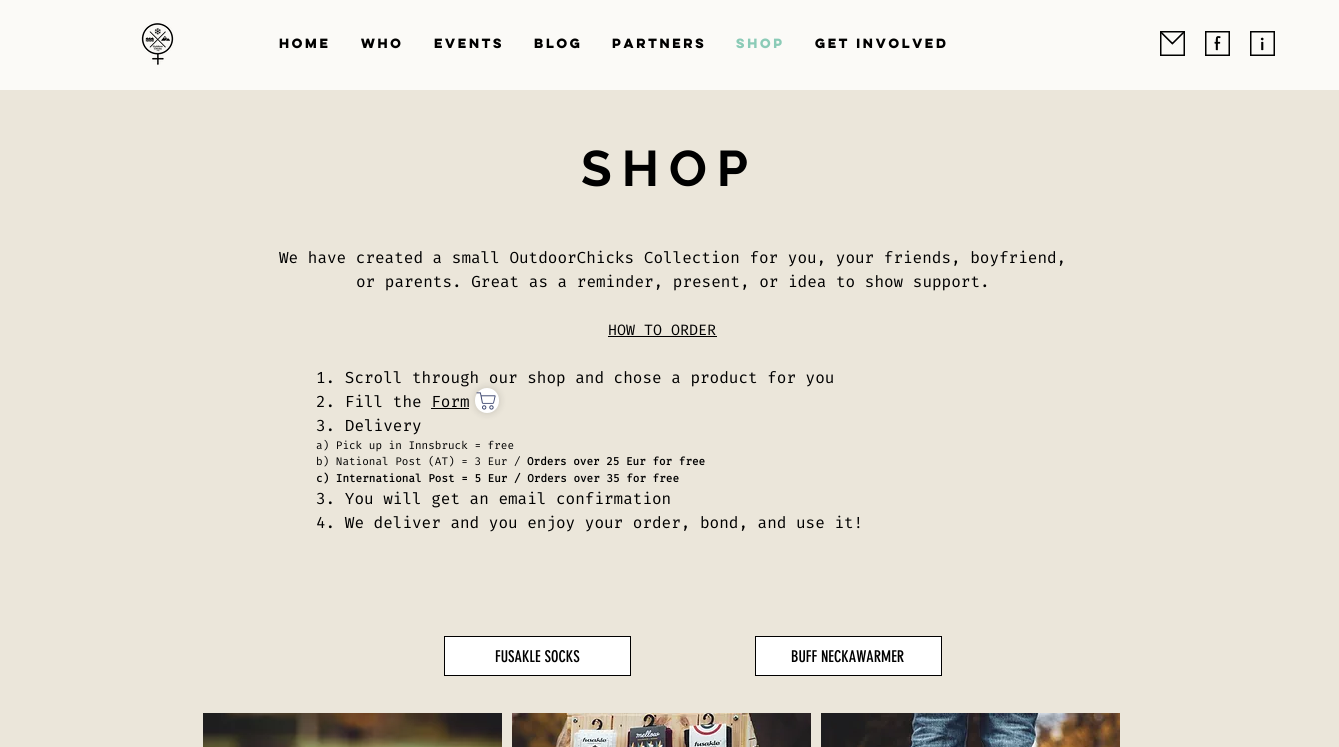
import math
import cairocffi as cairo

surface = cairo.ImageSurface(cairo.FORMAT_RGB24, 1339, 747)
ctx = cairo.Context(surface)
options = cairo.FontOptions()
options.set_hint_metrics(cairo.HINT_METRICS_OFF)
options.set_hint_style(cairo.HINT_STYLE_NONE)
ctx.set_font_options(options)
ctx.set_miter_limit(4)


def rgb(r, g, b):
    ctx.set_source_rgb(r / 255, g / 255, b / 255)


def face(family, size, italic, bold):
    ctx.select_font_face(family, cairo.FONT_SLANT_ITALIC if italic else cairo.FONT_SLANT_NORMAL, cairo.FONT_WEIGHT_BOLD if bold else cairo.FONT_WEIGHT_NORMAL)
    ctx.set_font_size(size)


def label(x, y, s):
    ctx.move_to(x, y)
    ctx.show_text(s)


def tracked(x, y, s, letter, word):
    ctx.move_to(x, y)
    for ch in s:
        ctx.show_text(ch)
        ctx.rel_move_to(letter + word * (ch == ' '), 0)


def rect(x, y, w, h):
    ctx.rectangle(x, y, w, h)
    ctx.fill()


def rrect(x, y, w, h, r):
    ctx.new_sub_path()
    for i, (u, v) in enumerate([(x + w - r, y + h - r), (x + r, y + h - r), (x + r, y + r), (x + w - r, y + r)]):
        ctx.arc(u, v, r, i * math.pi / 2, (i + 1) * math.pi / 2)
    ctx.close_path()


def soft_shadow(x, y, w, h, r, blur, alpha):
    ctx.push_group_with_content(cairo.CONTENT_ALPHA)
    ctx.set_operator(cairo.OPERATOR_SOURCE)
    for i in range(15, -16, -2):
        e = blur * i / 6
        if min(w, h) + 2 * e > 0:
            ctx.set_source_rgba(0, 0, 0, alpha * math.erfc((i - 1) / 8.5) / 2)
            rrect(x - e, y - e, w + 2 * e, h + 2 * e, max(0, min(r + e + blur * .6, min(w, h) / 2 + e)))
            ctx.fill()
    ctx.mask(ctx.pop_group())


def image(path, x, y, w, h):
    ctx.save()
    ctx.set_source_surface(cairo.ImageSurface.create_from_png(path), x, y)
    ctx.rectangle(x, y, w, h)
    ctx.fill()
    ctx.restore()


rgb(235, 230, 218)
ctx.paint()
rgb(251, 250, 247)
rect(0, 0, 1339, 90)
image('image0.png', 141, 23, 33, 42)
face('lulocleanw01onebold', 12, 0, 1)
rgb(0, 0, 0)
label(279, 48, 'HOME')
label(361, 48, 'WHO')
label(434, 48, 'EVENTS')
label(534, 48, 'BLOG')
label(612, 48, 'PARTNERS')
rgb(139, 203, 183)
label(736, 48, 'SHOP')
rgb(0, 0, 0)
label(815, 48, 'GET INVOLVED')
image('image1.png', 1160, 31, 25, 25)
image('image2.png', 1205, 31, 25, 25)
image('image3.png', 1250, 31, 25, 25)
face('Raleway', 50, 0, 1)
tracked(581, 186, 'SHOP', 10, 0)
face('Fira Mono', 16, 0, 0)
label(279, 263, 'We have created a small OutdoorChicks Collection for you, your friends, boyfriend,')
label(356, 287, 'or parents. Great as a reminder, present, or idea to show support.')
face('Fira Mono', 15, 0, 0)
label(608, 335, 'HOW TO ORDER')
rect(608, 336, 109, 1)
face('Fira Mono', 16, 0, 0)
label(316, 383, '1. Scroll through our shop and chose a product for you')
label(316, 407, '2. Fill the Form')
rect(431, 408, 38, 1)
label(316, 431, '3. Delivery')
face('Fira Mono', 11, 0, 0)
label(316, 449, 'a) Pick up in Innsbruck = free')
label(316, 465, 'b) National Post (AT) = 3 Eur /')
face('Fira Mono', 11, 0, 1)
label(527, 465, 'Orders over 25 Eur for free')
label(316, 482, 'c) International Post = 5 Eur / Orders over 35 for free')
face('Fira Mono', 16, 0, 0)
label(316, 504, '3. You will get an email confirmation')
label(316, 528, '4. We deliver and you enjoy your order, bond, and use it!')
rgb(0, 0, 0)
soft_shadow(475, 388, 24, 25, 12, 4, 0.15)
rgb(255, 255, 255)
rrect(475, 388, 24, 25, 12)
ctx.fill()
image('image4.png', 476, 392, 20, 18)
ctx.rectangle(444.5, 636.5, 186, 39)
ctx.fill_preserve()
rgb(0, 0, 0)
ctx.set_line_width(1)
ctx.stroke()
face('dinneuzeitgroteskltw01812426', 16, 0, 0)
label(495, 662, 'FUSAKLE SOCKS')
rgb(255, 255, 255)
ctx.rectangle(755.5, 636.5, 186, 39)
ctx.fill_preserve()
rgb(0, 0, 0)
ctx.stroke()
label(791, 662, 'BUFF NECKAWARMER')
image('image5.png', 203, 713, 299, 34)
image('image6.png', 512, 713, 299, 34)
image('image7.png', 821, 713, 299, 34)
surface.write_to_png('render.png')
